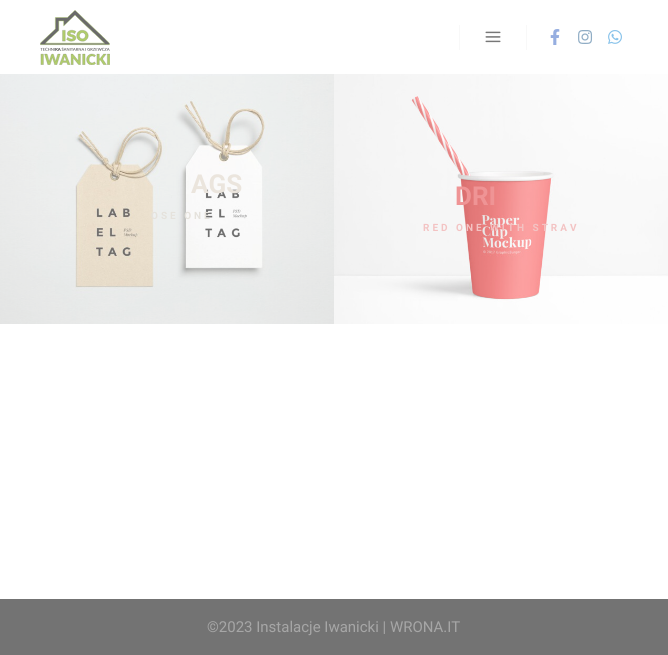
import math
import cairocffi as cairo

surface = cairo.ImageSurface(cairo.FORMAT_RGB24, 668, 655)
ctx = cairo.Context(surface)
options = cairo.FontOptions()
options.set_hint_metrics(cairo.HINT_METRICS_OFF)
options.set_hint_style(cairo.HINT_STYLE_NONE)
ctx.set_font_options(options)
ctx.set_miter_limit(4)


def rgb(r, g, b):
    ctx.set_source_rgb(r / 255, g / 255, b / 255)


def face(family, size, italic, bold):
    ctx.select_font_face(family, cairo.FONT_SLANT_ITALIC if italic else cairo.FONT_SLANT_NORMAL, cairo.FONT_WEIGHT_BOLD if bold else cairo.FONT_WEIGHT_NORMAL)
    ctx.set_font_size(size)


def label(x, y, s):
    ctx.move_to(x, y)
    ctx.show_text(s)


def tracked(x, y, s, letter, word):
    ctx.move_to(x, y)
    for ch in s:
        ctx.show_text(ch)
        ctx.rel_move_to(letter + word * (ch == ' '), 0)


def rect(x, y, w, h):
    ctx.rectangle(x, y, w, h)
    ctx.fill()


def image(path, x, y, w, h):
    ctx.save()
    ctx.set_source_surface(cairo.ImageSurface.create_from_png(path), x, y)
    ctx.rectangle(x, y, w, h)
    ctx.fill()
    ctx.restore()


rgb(255, 255, 255)
ctx.paint()
image('image0.png', 40, 10, 70, 55)
rgb(248, 248, 248)
rect(459, 25, 1, 25)
image('image1.png', 485, 31, 16, 12)
rect(526, 25, 1, 25)
image('image2.png', 550, 29, 10, 16)
image('image3.png', 578, 30, 15, 14)
image('image4.png', 608, 30, 14, 14)
image('image5.png', 0, 74, 334, 250)
face('Roboto', 26, 0, 1)
rgb(235, 229, 221)
label(191, 193, 'AGS')
face('Roboto', 10, 0, 1)
rgb(229, 226, 220)
tracked(151, 219, 'OSE ONE', 3, 0)
image('image6.png', 334, 74, 334, 250)
face('Roboto', 26, 0, 1)
rgb(239, 148, 149)
label(455, 205, 'DRI')
face('Roboto', 10, 0, 1)
rgb(243, 195, 195)
tracked(423, 231, 'RED ONE WITH STRAV', 3, 0)
rgb(115, 115, 115)
rect(0, 599, 668, 56)
face('Roboto', 15, 0, 0)
rgb(166, 166, 166)
label(207, 632, '©2023 Instalacje Iwanicki | WRONA.IT')
surface.write_to_png('render.png')
